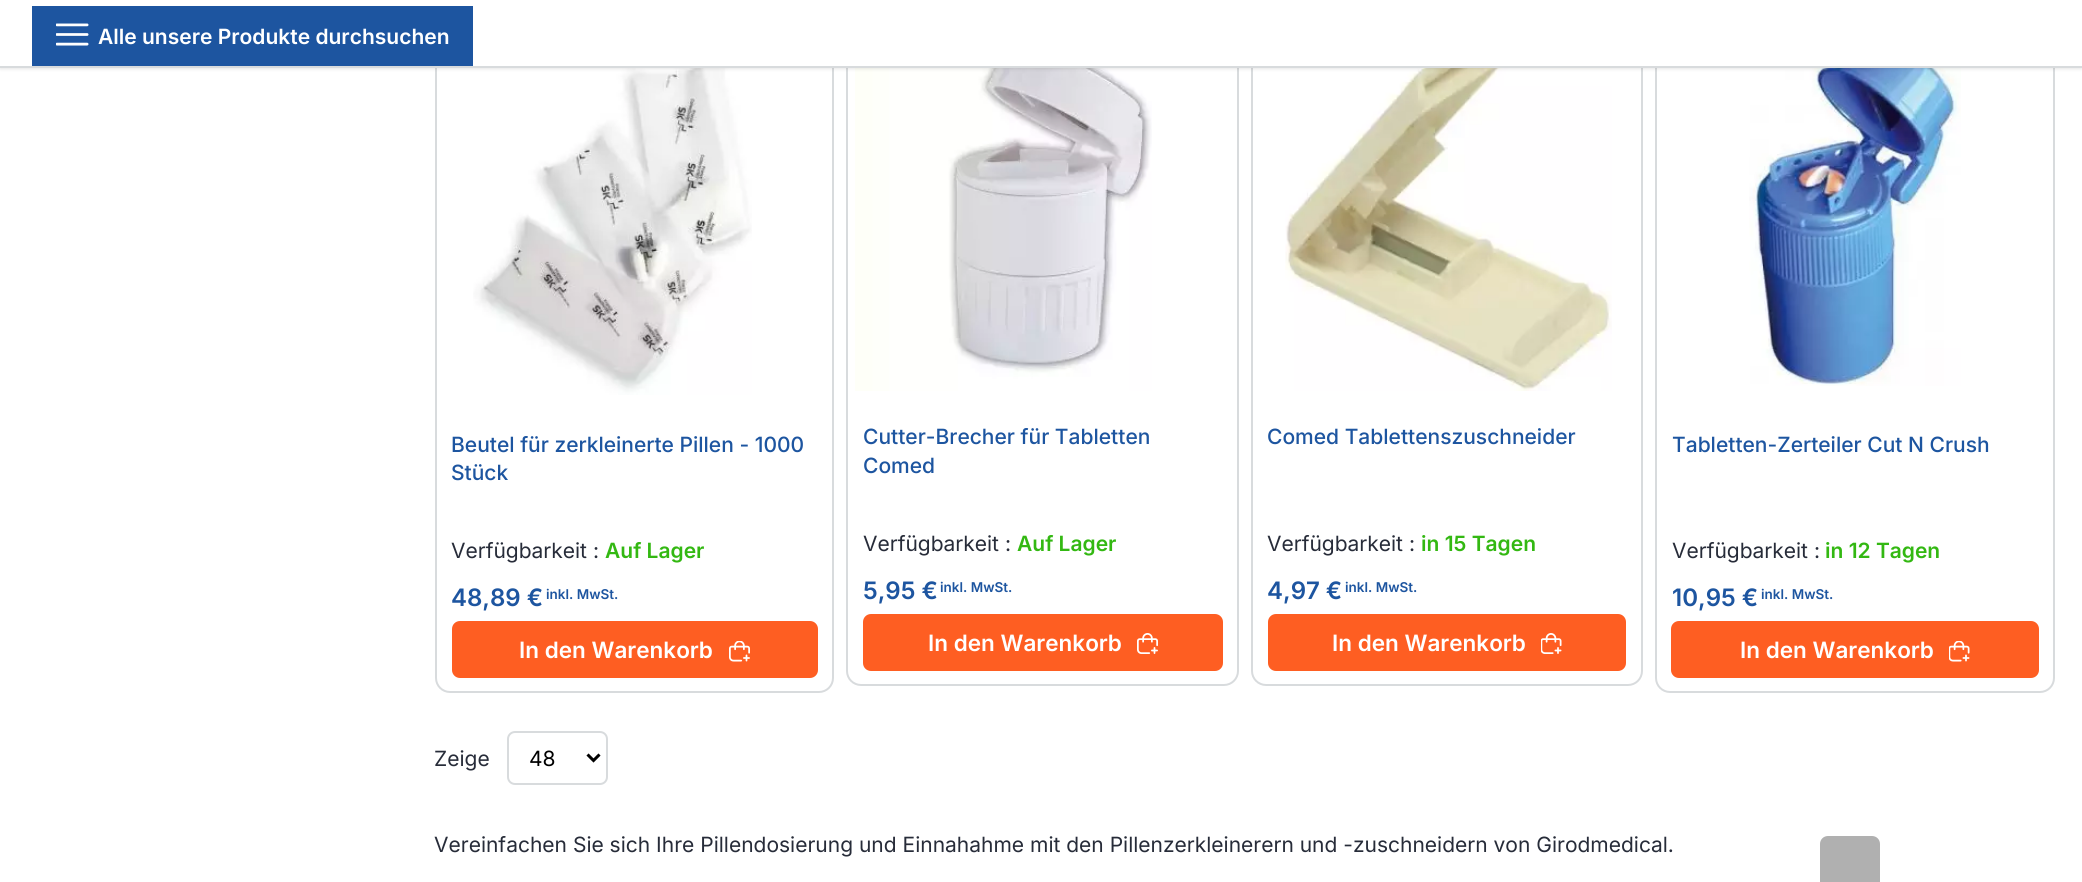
import math
import cairocffi as cairo

surface = cairo.ImageSurface(cairo.FORMAT_RGB24, 2082, 882)
ctx = cairo.Context(surface)
options = cairo.FontOptions()
options.set_hint_metrics(cairo.HINT_METRICS_OFF)
options.set_hint_style(cairo.HINT_STYLE_NONE)
ctx.set_font_options(options)
ctx.set_miter_limit(4)


def rgb(r, g, b):
    ctx.set_source_rgb(r / 255, g / 255, b / 255)


def face(family, size, italic, bold):
    ctx.select_font_face(family, cairo.FONT_SLANT_ITALIC if italic else cairo.FONT_SLANT_NORMAL, cairo.FONT_WEIGHT_BOLD if bold else cairo.FONT_WEIGHT_NORMAL)
    ctx.set_font_size(size)


def label(x, y, s):
    ctx.move_to(x, y)
    ctx.show_text(s)


def rect(x, y, w, h):
    ctx.rectangle(x, y, w, h)
    ctx.fill()


def rrect(x, y, w, h, r):
    ctx.new_sub_path()
    for i, (u, v) in enumerate([(x + w - r, y + h - r), (x + r, y + h - r), (x + r, y + r), (x + w - r, y + r)]):
        ctx.arc(u, v, r, i * math.pi / 2, (i + 1) * math.pi / 2)
    ctx.close_path()


def soft_shadow(x, y, w, h, r, blur, alpha):
    ctx.push_group_with_content(cairo.CONTENT_ALPHA)
    ctx.set_operator(cairo.OPERATOR_SOURCE)
    for i in range(15, -16, -2):
        e = blur * i / 6
        if min(w, h) + 2 * e > 0:
            ctx.set_source_rgba(0, 0, 0, alpha * math.erfc((i - 1) / 8.5) / 2)
            rrect(x - e, y - e, w + 2 * e, h + 2 * e, max(0, min(r + e + blur * .6, min(w, h) / 2 + e)))
            ctx.fill()
    ctx.mask(ctx.pop_group())


def image(path, x, y, w, h):
    ctx.save()
    ctx.set_source_surface(cairo.ImageSurface.create_from_png(path), x, y)
    ctx.rectangle(x, y, w, h)
    ctx.fill()
    ctx.restore()


rgb(255, 255, 255)
ctx.paint()
rrect(436, 6, 397, 686, 14)
rgb(216, 219, 221)
ctx.stroke()
image('image1.png', 473, 68, 279, 327)
rrect(847, 6, 391, 679, 14)
ctx.stroke()
image('image3.png', 855, 68, 297, 323)
rrect(1252, 6, 390, 679, 14)
ctx.stroke()
image('image5.png', 1285, 68, 327, 323)
rrect(1656, 6, 398, 686, 14)
ctx.stroke()
image('image7.png', 1749, 68, 212, 318)
rgb(0, 0, 0)
soft_shadow(0, 2, 2082, 67, 0, 1.5, 0.1)
rgb(255, 255, 255)
rect(0, 0, 2082, 66)
rgb(216, 219, 221)
rect(0, 66, 2082, 2)
rgb(29, 85, 160)
rect(32, 6, 441, 60)
image('image0.png', 56, 23, 33, 23)
face('Inter SemiBold', 21, 0, 0)
rgb(255, 255, 255)
label(98, 44, 'Alle unsere Produkte durchsuchen')
face('Inter Medium', 21, 0, 0)
rgb(29, 85, 160)
label(451, 452, 'Beutel für zerkleinerte Pillen - 1000')
label(451, 480, 'Stück')
face('Inter', 21, 0, 0)
rgb(39, 44, 57)
label(451, 558, 'Verfügbarkeit :')
face('Inter SemiBold', 21, 0, 0)
rgb(51, 184, 18)
label(605, 558, 'Auf Lager')
face('Inter SemiBold', 24, 0, 0)
rgb(29, 85, 160)
label(451, 606, '48,89 €')
face('Inter SemiBold', 13.5, 0, 0)
label(546, 599, 'inkl. MwSt.')
rgb(254, 94, 34)
rrect(453, 622, 364, 55, 7)
ctx.fill_preserve()
ctx.stroke()
face('Inter SemiBold', 22.5, 0, 0)
rgb(255, 255, 255)
label(519, 658, 'In den Warenkorb')
image('image2.png', 729, 641, 21, 21)
face('Inter Medium', 21, 0, 0)
rgb(29, 85, 160)
label(863, 444, 'Cutter-Brecher für Tabletten')
label(863, 473, 'Comed')
face('Inter', 21, 0, 0)
rgb(39, 44, 57)
label(863, 551, 'Verfügbarkeit :')
face('Inter SemiBold', 21, 0, 0)
rgb(51, 184, 18)
label(1017, 551, 'Auf Lager')
face('Inter SemiBold', 24, 0, 0)
rgb(29, 85, 160)
label(863, 599, '5,95 €')
face('Inter SemiBold', 13.5, 0, 0)
label(940, 592, 'inkl. MwSt.')
rgb(254, 94, 34)
rrect(864, 615, 358, 55, 7)
ctx.fill_preserve()
ctx.stroke()
face('Inter SemiBold', 22.5, 0, 0)
rgb(255, 255, 255)
label(928, 651, 'In den Warenkorb')
image('image4.png', 1137, 633, 21, 21)
face('Inter Medium', 21, 0, 0)
rgb(29, 85, 160)
label(1267, 444, 'Comed Tablettenszuschneider')
face('Inter', 21, 0, 0)
rgb(39, 44, 57)
label(1267, 551, 'Verfügbarkeit :')
face('Inter SemiBold', 21, 0, 0)
rgb(51, 184, 18)
label(1421, 551, 'in 15 Tagen')
face('Inter SemiBold', 24, 0, 0)
rgb(29, 85, 160)
label(1267, 599, '4,97 €')
face('Inter SemiBold', 13.5, 0, 0)
label(1345, 592, 'inkl. MwSt.')
rgb(254, 94, 34)
rrect(1269, 615, 356, 55, 7)
ctx.fill_preserve()
ctx.stroke()
face('Inter SemiBold', 22.5, 0, 0)
rgb(255, 255, 255)
label(1332, 651, 'In den Warenkorb')
image('image6.png', 1541, 633, 21, 21)
face('Inter Medium', 21, 0, 0)
rgb(29, 85, 160)
label(1672, 452, 'Tabletten-Zerteiler Cut N Crush')
face('Inter', 21, 0, 0)
rgb(39, 44, 57)
label(1672, 558, 'Verfügbarkeit :')
face('Inter SemiBold', 21, 0, 0)
rgb(51, 184, 18)
label(1825, 558, 'in 12 Tagen')
face('Inter SemiBold', 24, 0, 0)
rgb(29, 85, 160)
label(1672, 606, '10,95 €')
face('Inter SemiBold', 13.5, 0, 0)
label(1761, 599, 'inkl. MwSt.')
rgb(254, 94, 34)
rrect(1672, 622, 366, 55, 7)
ctx.fill_preserve()
ctx.stroke()
face('Inter SemiBold', 22.5, 0, 0)
rgb(255, 255, 255)
label(1740, 658, 'In den Warenkorb')
image('image8.png', 1949, 641, 21, 21)
face('Inter', 21, 0, 0)
rgb(39, 44, 57)
label(434, 766, 'Zeige')
rrect(508, 732, 99, 52, 7)
rgb(216, 219, 221)
ctx.stroke()
ctx.new_path()
ctx.move_to(587.5, 754.5)
ctx.line_to(593.5, 760.5)
ctx.line_to(599.5, 754.5)
rgb(0, 0, 0)
ctx.set_line_width(3)
ctx.stroke()
label(529, 766, '48')
rgb(39, 44, 57)
label(434, 852, 'Vereinfachen Sie sich Ihre Pillendosierung und Einnahahme mit den Pillenzerkleinerern und -zuschneidern von Girodmedical.')
rgb(176, 176, 176)
ctx.new_path()
ctx.move_to(1828, 836)
ctx.line_to(1872, 836)
ctx.curve_to(1876.5, 836, 1880, 839.5, 1880, 844)
ctx.line_to(1880, 882)
ctx.line_to(1820, 882)
ctx.line_to(1820, 844)
ctx.curve_to(1820, 839.5, 1823.5, 836, 1828, 836)
ctx.close_path()
ctx.fill()
surface.write_to_png('render.png')
